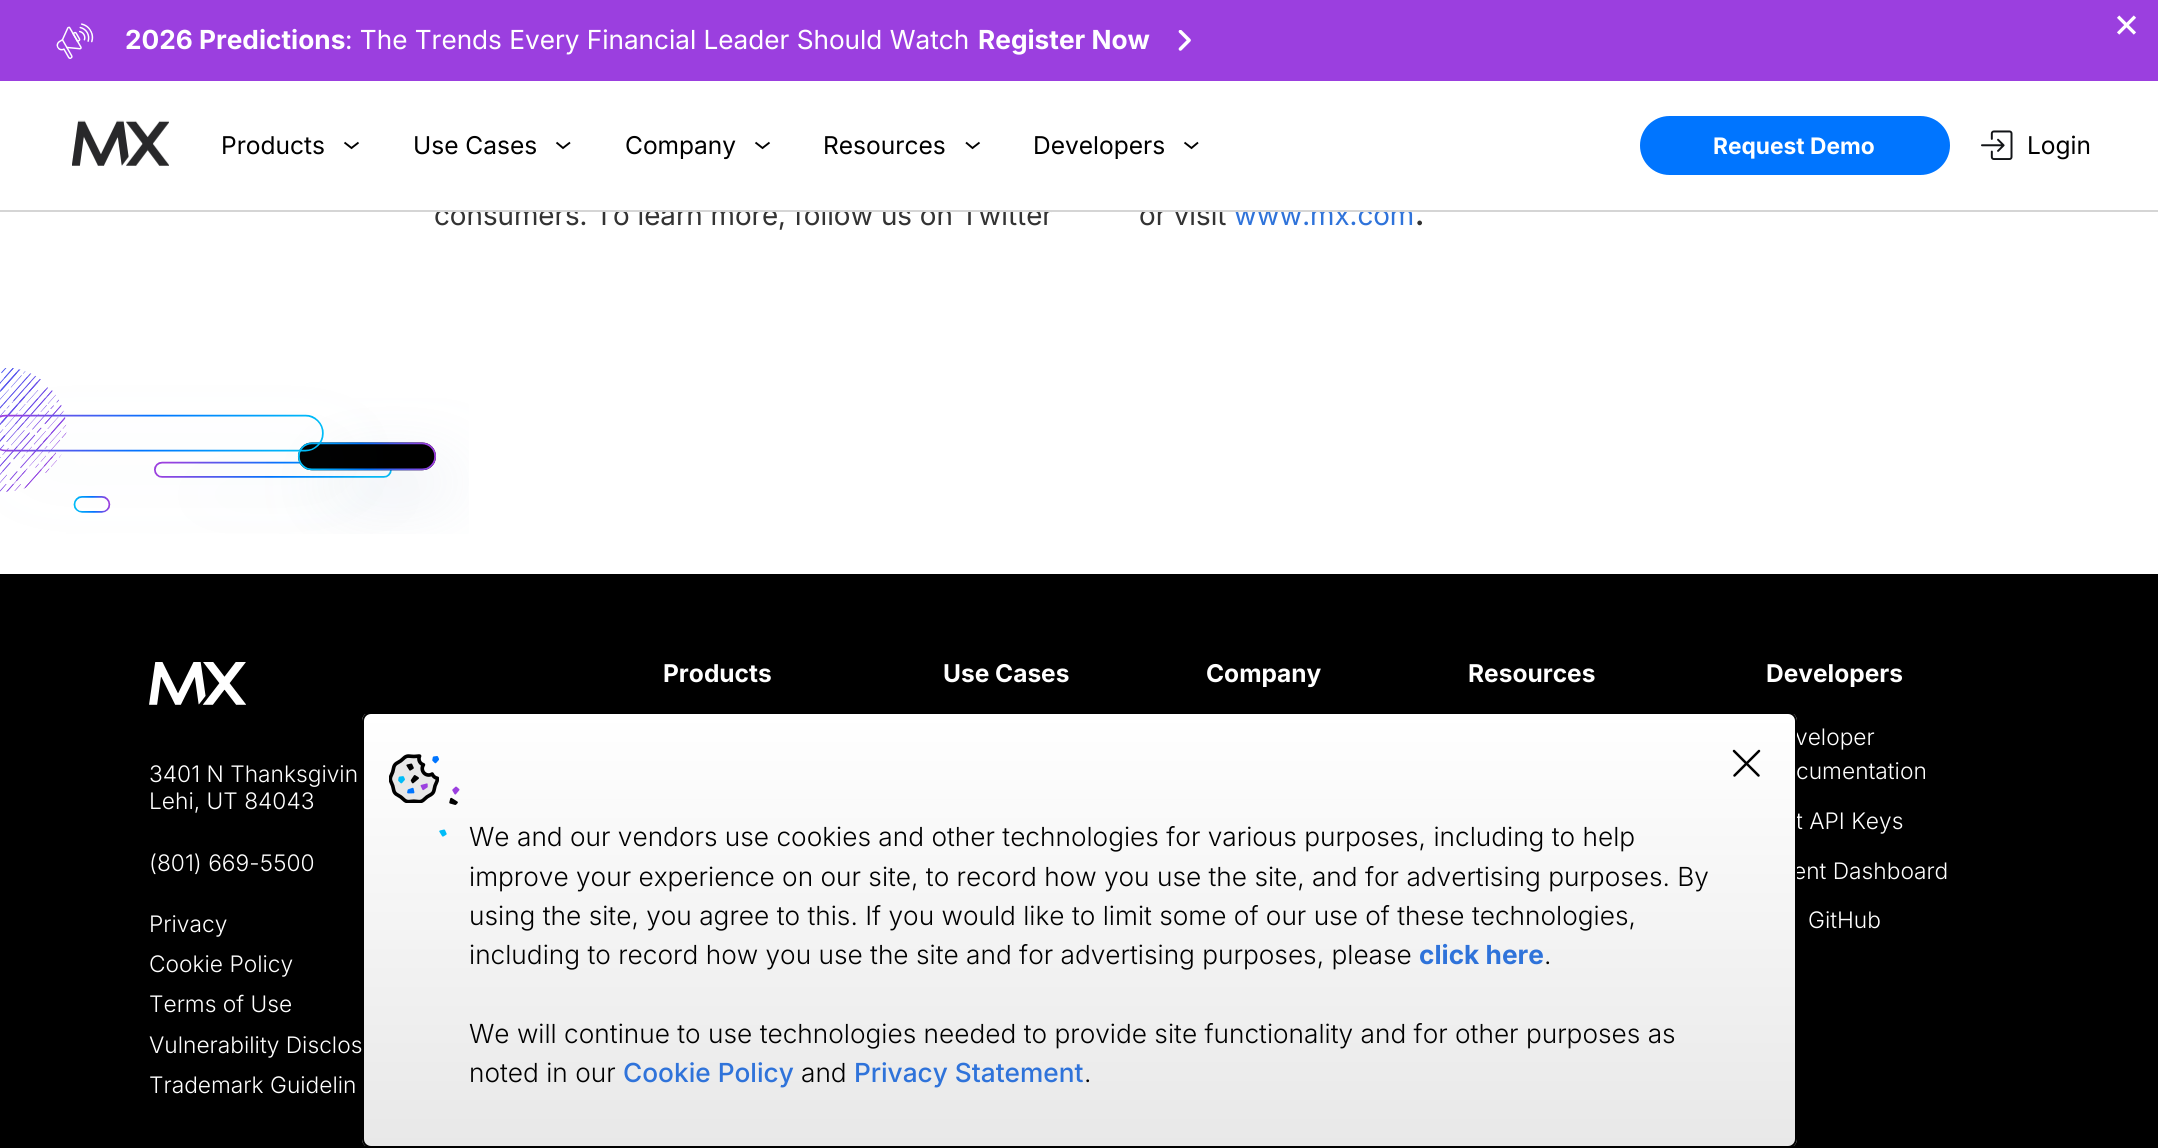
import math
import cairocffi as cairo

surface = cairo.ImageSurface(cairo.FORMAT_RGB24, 2158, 1148)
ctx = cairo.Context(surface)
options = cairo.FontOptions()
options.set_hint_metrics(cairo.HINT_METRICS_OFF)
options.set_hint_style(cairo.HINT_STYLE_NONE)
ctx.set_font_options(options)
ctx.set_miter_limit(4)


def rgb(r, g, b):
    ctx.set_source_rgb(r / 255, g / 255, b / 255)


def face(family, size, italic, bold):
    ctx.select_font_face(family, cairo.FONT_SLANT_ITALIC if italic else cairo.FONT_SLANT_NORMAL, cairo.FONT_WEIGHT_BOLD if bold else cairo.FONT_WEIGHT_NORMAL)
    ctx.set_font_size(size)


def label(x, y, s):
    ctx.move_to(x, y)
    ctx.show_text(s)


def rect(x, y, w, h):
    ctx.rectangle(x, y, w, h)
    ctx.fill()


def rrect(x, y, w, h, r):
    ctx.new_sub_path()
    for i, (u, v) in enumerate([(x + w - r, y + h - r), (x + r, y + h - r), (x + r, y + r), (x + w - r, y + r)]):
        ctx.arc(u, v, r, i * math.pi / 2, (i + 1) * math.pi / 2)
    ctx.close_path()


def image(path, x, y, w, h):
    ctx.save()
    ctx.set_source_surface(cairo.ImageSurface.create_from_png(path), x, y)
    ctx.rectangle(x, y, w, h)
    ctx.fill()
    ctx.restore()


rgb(255, 255, 255)
ctx.paint()
face('Inter', 28, 0, 0)
rgb(51, 51, 51)
label(434, 225, 'consumers. To learn more, follow us on Twitter')
label(1139, 225, 'or visit')
rgb(47, 115, 218)
label(1234, 225, 'www.mx.com')
rgb(255, 255, 255)
rect(439, 203, 971, 7)
rgb(213, 213, 213)
rect(0, 210, 2158, 2)
rgb(155, 63, 223)
rect(0, 0, 2158, 81)
face('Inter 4', 42, 0, 0)
rgb(255, 255, 255)
label(2113, 37, '×')
image('image0.png', 56, 23, 38, 36)
face('Inter', 26.25, 0, 1)
label(125, 49, '2026 Predictions')
face('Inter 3', 26.25, 0, 0)
label(345, 49, ': The Trends Every Financial Leader Should Watch')
face('Inter', 26.25, 0, 1)
label(978, 49, 'Register Now')
image('image1.png', 1178, 30, 13, 21)
image('image2.png', 72, 120, 97, 46)
face('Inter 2', 24.5, 0, 0)
rgb(0, 0, 0)
label(221, 154, 'Products')
ctx.new_path()
ctx.move_to(344.5, 142.5)
ctx.line_to(351.5, 148)
ctx.line_to(358.5, 142.5)
ctx.set_line_width(1.9)
ctx.stroke()
label(413, 154, 'Use Cases')
ctx.new_path()
ctx.move_to(556.5, 142.5)
ctx.line_to(563, 148)
ctx.line_to(570, 142.5)
ctx.stroke()
label(625, 154, 'Company')
ctx.new_path()
ctx.move_to(755.5, 142.5)
ctx.line_to(762.5, 148)
ctx.line_to(769.5, 142.5)
ctx.stroke()
label(823, 154, 'Resources')
ctx.new_path()
ctx.move_to(966, 142.5)
ctx.line_to(972.5, 148)
ctx.line_to(979.5, 142.5)
ctx.stroke()
label(1033, 154, 'Developers')
ctx.new_path()
ctx.move_to(1184.5, 142.5)
ctx.line_to(1191.5, 148)
ctx.line_to(1198, 142.5)
ctx.stroke()
rgb(0, 117, 255)
rrect(1640, 116, 310, 59, 29.5)
ctx.fill()
face('Inter', 22.75, 0, 1)
rgb(255, 255, 255)
label(1713, 154, 'Request Demo')
image('image3.png', 1981, 130, 32, 30)
face('Inter 2', 24.5, 0, 0)
rgb(0, 0, 0)
label(2027, 154, 'Login')
face('Inter', 28, 0, 1)
rgb(51, 51, 51)
label(1415, 225, '.')
image('image4.png', 0, 368, 469, 166)
rgb(0, 0, 0)
rect(0, 574, 2158, 574)
image('image5.png', 149, 662, 97, 43)
face('Inter Light', 22.75, 0, 0)
rgb(255, 255, 255)
label(149, 782, '3401 N Thanksgivin')
label(149, 809, 'Lehi, UT 84043')
label(149, 871, '(801) 669-5500')
label(149, 932, 'Privacy')
label(149, 972, 'Cookie Policy')
label(149, 1012, 'Terms of Use')
label(149, 1053, 'Vulnerability Disclos')
label(149, 1093, 'Trademark Guidelin')
face('Inter', 24.5, 0, 1)
label(663, 682, 'Products')
label(943, 682, 'Use Cases')
label(1206, 682, 'Company')
label(1468, 682, 'Resources')
label(1766, 682, 'Developers')
face('Inter Light', 22.75, 0, 0)
label(1795, 745, 'veloper')
label(1796, 779, 'cumentation')
label(1796, 829, 't API Keys')
label(1793, 879, 'ent Dashboard')
label(1808, 928, 'GitHub')
ctx.save()
rrect(362, 712, 1435, 436, 9)
ctx.clip()
gradient = cairo.LinearGradient(1080, 714, 1080, 1146)
gradient.add_color_stop_rgba(0, 1, 1, 1, 1)
gradient.add_color_stop_rgba(1, 0.91, 0.91, 0.91, 1)
ctx.set_source(gradient)
rect(362, 714, 1435, 432)
ctx.restore()
rrect(363, 713, 1433, 434, 8)
rgb(0, 0, 0)
ctx.set_line_width(2)
ctx.stroke()
ctx.new_path()
ctx.move_to(1734, 751)
ctx.line_to(1758.5, 775.5)
ctx.move_to(1759, 751)
ctx.line_to(1734.5, 775.5)
ctx.set_line_width(2.5)
ctx.set_line_cap(cairo.LINE_CAP_ROUND)
ctx.stroke()
image('image6.png', 389, 754, 71, 83)
face('Inter Light', 26.25, 0, 0)
label(469, 846, 'We and our vendors use cookies and other technologies for various purposes, including to help')
label(469, 886, 'improve your experience on our site, to record how you use the site, and for advertising purposes. By')
label(469, 925, 'using the site, you agree to this. If you would like to limit some of our use of these technologies,')
label(469, 964, 'including to record how you use the site and for advertising purposes, please')
face('Inter', 26.25, 0, 1)
rgb(47, 115, 218)
label(1419, 964, 'click here')
face('Inter Light', 26.25, 0, 0)
rgb(0, 0, 0)
label(1544, 964, '.')
label(469, 1043, 'We will continue to use technologies needed to provide site functionality and for other purposes as')
label(469, 1082, 'noted in our')
face('Inter Medium', 26.25, 0, 0)
rgb(47, 115, 218)
label(623, 1082, 'Cookie Policy')
face('Inter Light', 26.25, 0, 0)
rgb(0, 0, 0)
label(801, 1082, 'and')
face('Inter Medium', 26.25, 0, 0)
rgb(47, 115, 218)
label(854, 1082, 'Privacy Statement')
face('Inter Light', 26.25, 0, 0)
rgb(0, 0, 0)
label(1084, 1082, '.')
surface.write_to_png('render.png')
